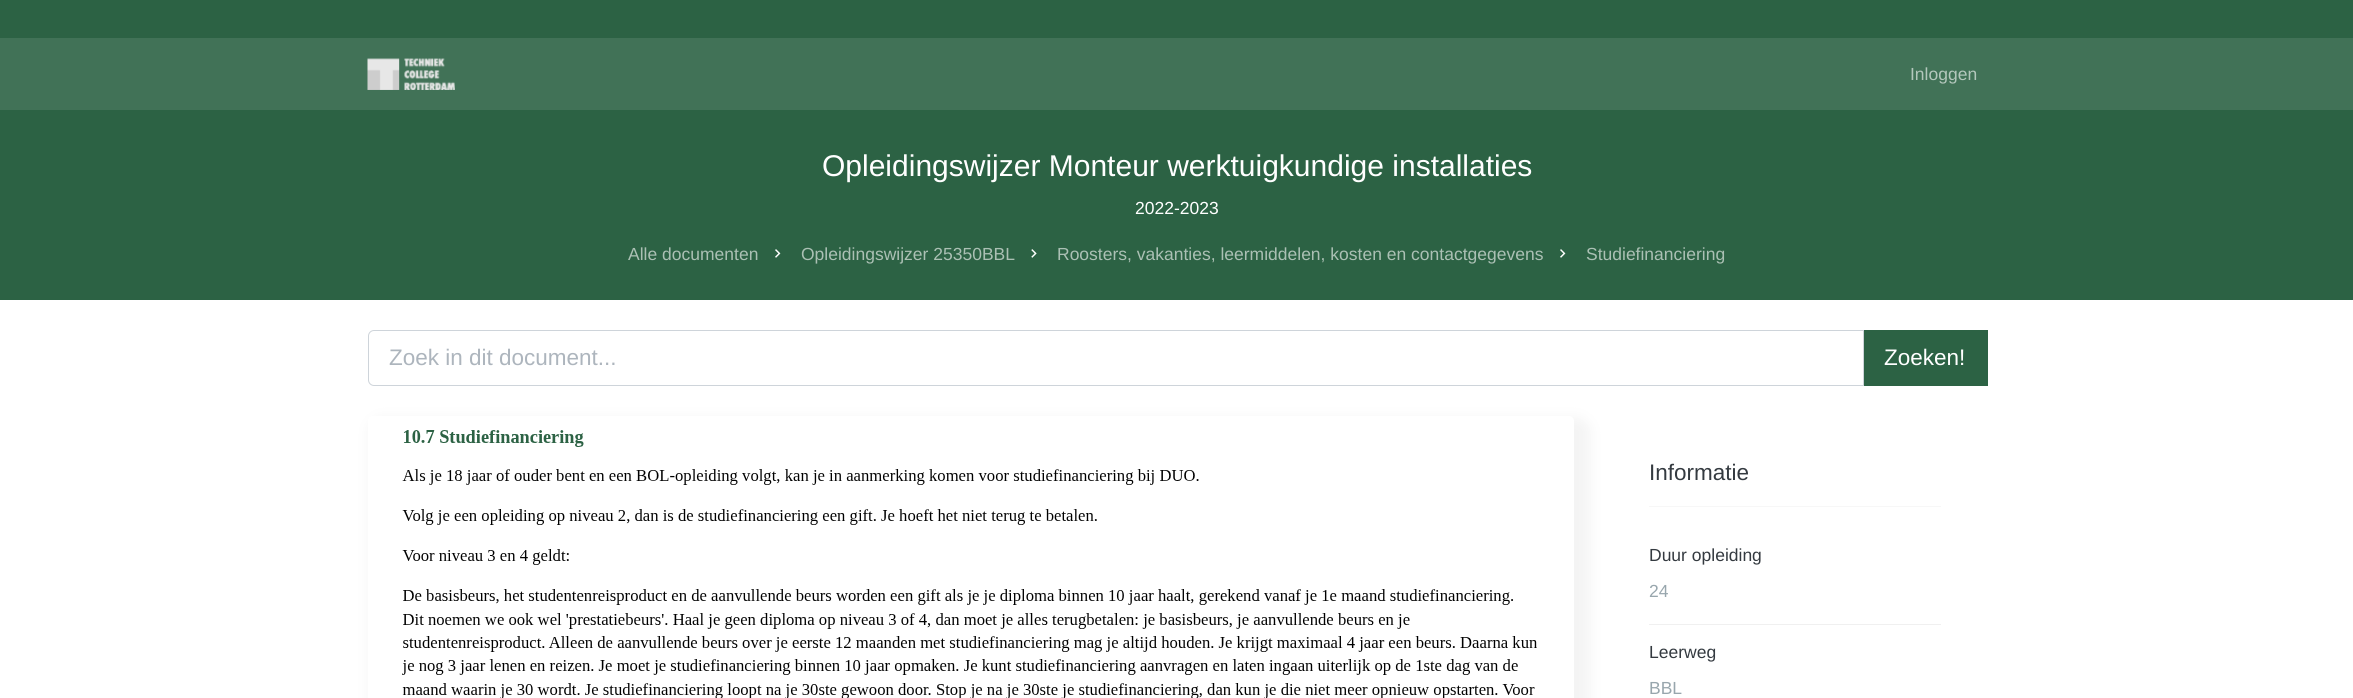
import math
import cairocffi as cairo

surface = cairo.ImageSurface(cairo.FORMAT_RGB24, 2353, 698)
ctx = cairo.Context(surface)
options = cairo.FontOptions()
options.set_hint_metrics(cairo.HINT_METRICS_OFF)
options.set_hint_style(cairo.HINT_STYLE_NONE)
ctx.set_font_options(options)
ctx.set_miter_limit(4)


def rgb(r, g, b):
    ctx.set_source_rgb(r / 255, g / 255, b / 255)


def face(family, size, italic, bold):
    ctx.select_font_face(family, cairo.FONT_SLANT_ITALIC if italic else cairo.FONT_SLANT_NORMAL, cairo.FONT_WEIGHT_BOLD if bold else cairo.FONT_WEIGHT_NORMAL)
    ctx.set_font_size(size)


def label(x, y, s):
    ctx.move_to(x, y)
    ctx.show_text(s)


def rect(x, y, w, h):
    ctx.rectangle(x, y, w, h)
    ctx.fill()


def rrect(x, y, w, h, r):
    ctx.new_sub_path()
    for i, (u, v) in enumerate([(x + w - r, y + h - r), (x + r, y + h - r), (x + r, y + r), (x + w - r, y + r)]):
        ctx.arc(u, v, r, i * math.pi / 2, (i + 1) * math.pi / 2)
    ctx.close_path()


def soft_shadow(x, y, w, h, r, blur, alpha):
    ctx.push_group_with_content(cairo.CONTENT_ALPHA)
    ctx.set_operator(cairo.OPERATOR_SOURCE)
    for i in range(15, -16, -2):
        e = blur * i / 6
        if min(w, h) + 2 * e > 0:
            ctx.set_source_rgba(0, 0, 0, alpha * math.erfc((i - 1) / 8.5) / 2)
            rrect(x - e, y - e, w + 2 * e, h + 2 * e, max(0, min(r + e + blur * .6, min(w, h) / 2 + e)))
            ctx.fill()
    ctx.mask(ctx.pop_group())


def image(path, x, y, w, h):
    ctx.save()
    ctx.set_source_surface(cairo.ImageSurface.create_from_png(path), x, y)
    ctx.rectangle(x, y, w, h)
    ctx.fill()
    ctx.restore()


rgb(44, 98, 68)
ctx.paint()
rgb(65, 114, 87)
rect(0, 38, 2353, 72)
image('image0.png', 367, 58, 88, 32)
face('Liberation Sans', 17.5, 0, 0)
rgb(179, 199, 188)
label(1910, 80, 'Inloggen')
face('Liberation Sans', 30, 0, 0)
rgb(255, 255, 255)
label(822, 176, 'Opleidingswijzer Monteur werktuigkundige installaties')
face('Liberation Sans', 17.5, 0, 0)
label(1135, 214, '2022-2023')
rgb(171, 192, 180)
label(628, 260, 'Alle documenten')
image('image1.png', 775, 249, 6, 9)
label(801, 260, 'Opleidingswijzer 25350BBL')
image('image2.png', 1031, 249, 6, 9)
label(1057, 260, 'Roosters, vakanties, leermiddelen, kosten en contactgegevens')
image('image1.png', 1560, 249, 6, 9)
label(1586, 260, 'Studiefinanciering')
rgb(255, 255, 255)
rect(0, 300, 2353, 398)
ctx.new_path()
ctx.move_to(374, 330.5)
ctx.line_to(1863.5, 330.5)
ctx.line_to(1863.5, 385.5)
ctx.line_to(374, 385.5)
ctx.curve_to(371, 385.5, 368.5, 383, 368.5, 380)
ctx.line_to(368.5, 336)
ctx.curve_to(368.5, 333, 371, 330.5, 374, 330.5)
ctx.close_path()
rgb(206, 212, 218)
ctx.set_line_width(1)
ctx.stroke()
face('Liberation Sans', 22.5, 0, 0)
rgb(173, 181, 189)
label(389, 365, 'Zoek in dit document...')
rgb(44, 98, 68)
rect(1864, 330, 124, 56)
rgb(255, 255, 255)
label(1884, 365, 'Zoeken!')
rgb(244, 244, 244)
soft_shadow(369, 418, 1221, 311, 13, 6, 1)
rgb(255, 255, 255)
rrect(368, 416, 1206, 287, 5)
ctx.fill()
image('image3.png', 402, 430, 1135, 268)
rgb(52, 58, 64)
label(1649, 480, 'Informatie')
rgb(247, 247, 247)
rect(1649, 506, 292, 1)
rgb(240, 240, 240)
rect(1649, 624, 292, 1)
face('Liberation Sans', 17.5, 0, 0)
rgb(52, 58, 64)
label(1649, 561, 'Duur opleiding')
rgb(152, 166, 173)
label(1649, 597, '24')
rgb(52, 58, 64)
label(1649, 658, 'Leerweg')
rgb(152, 166, 173)
label(1649, 694, 'BBL')
surface.write_to_png('render.png')
